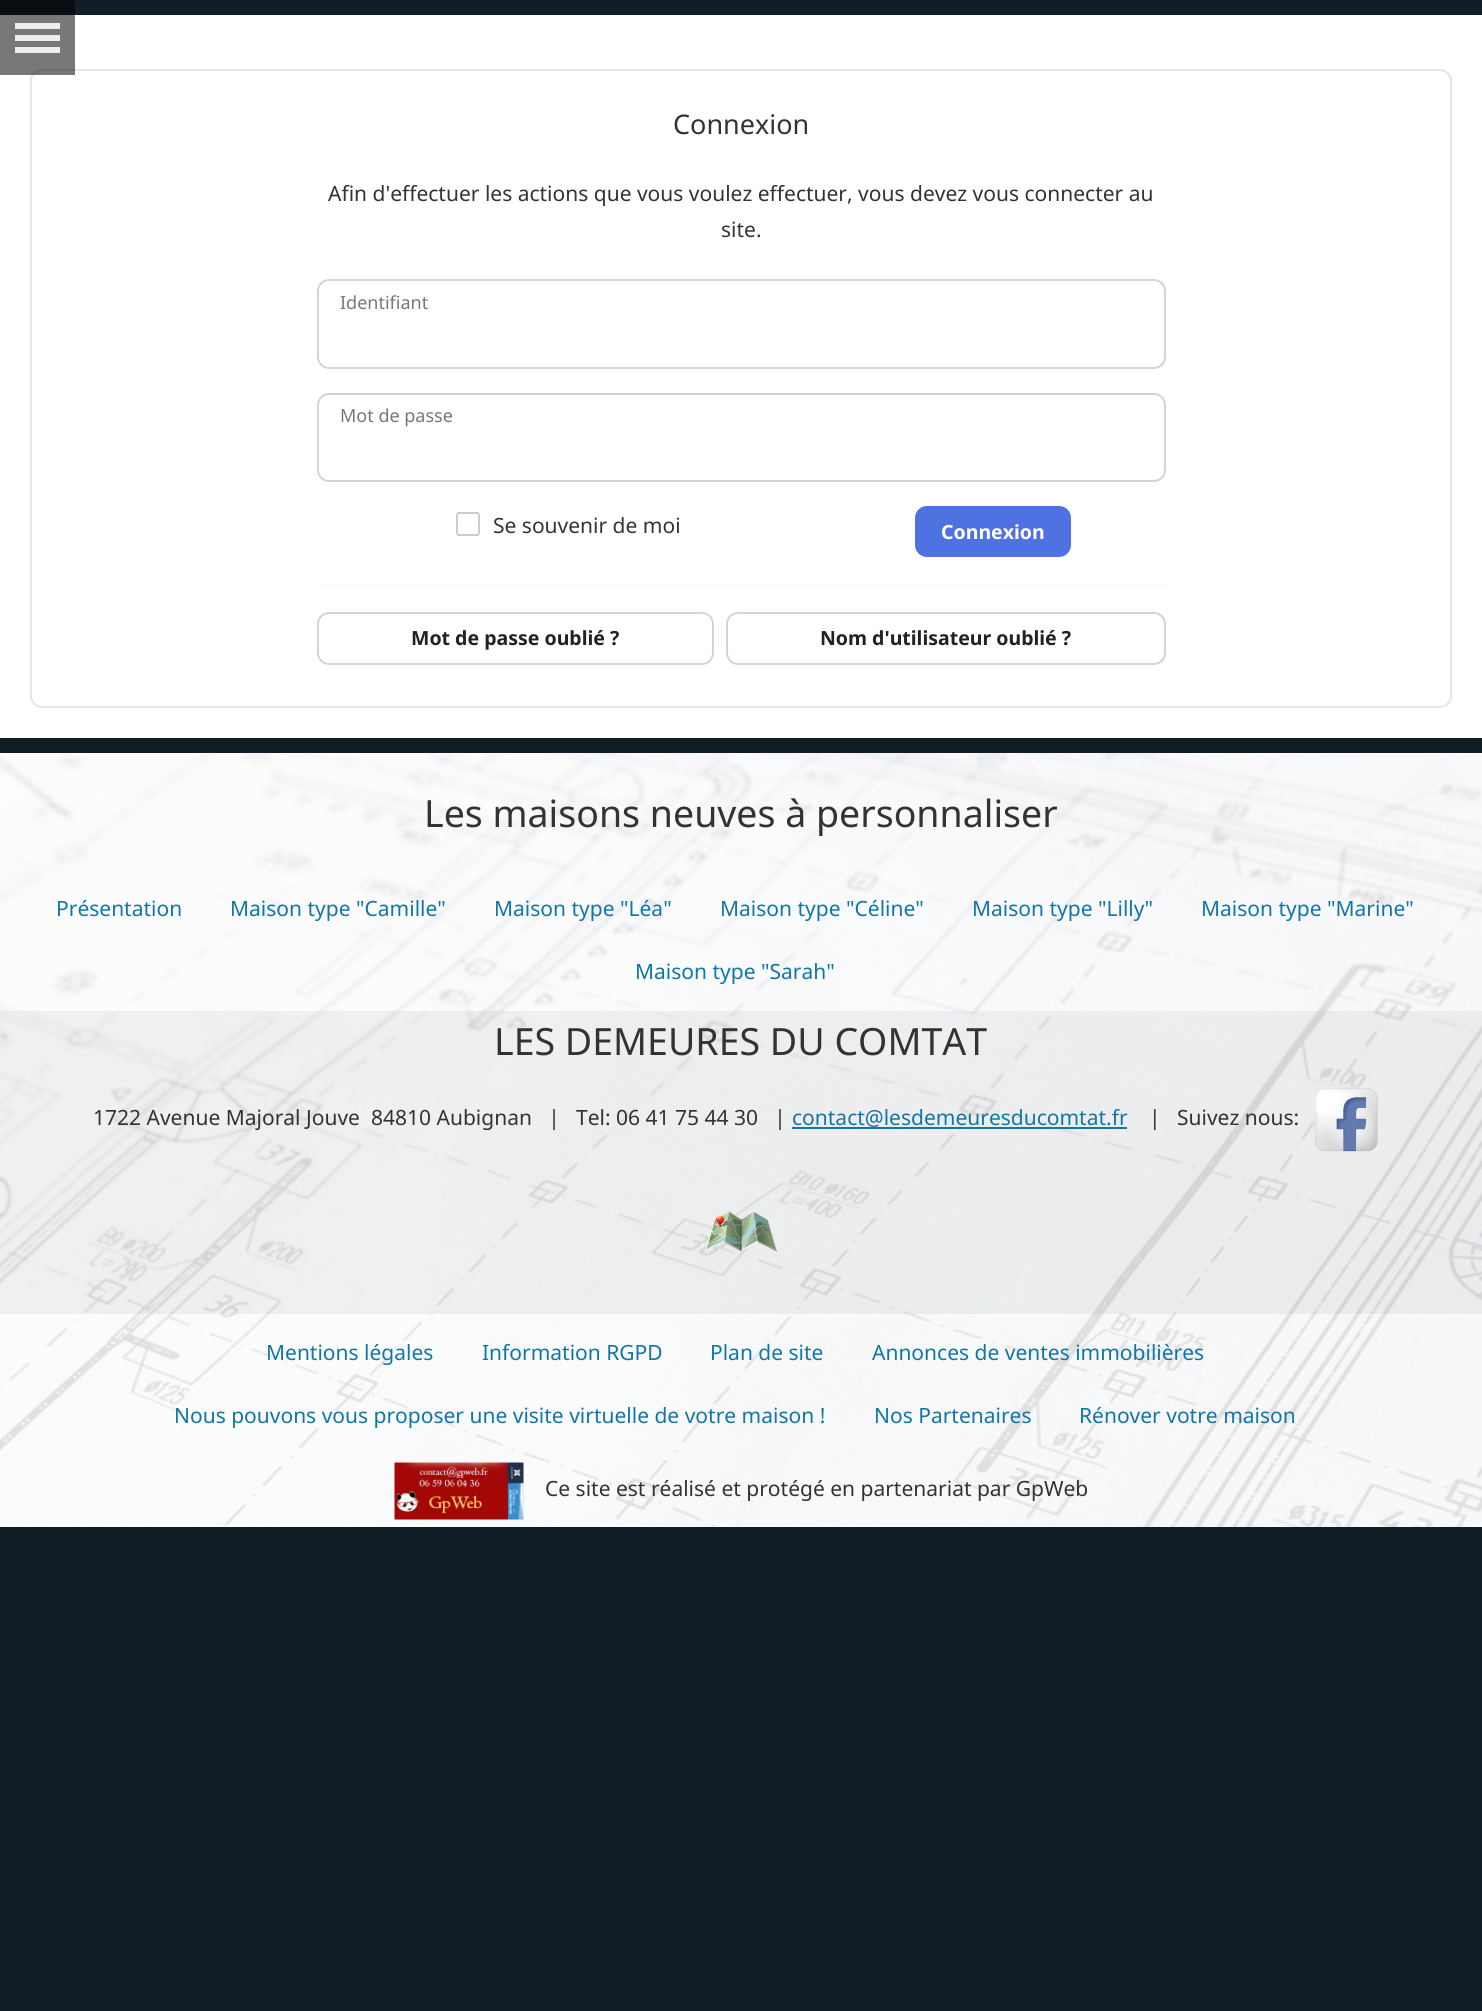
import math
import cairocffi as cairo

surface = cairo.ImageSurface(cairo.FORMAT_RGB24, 1482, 2011)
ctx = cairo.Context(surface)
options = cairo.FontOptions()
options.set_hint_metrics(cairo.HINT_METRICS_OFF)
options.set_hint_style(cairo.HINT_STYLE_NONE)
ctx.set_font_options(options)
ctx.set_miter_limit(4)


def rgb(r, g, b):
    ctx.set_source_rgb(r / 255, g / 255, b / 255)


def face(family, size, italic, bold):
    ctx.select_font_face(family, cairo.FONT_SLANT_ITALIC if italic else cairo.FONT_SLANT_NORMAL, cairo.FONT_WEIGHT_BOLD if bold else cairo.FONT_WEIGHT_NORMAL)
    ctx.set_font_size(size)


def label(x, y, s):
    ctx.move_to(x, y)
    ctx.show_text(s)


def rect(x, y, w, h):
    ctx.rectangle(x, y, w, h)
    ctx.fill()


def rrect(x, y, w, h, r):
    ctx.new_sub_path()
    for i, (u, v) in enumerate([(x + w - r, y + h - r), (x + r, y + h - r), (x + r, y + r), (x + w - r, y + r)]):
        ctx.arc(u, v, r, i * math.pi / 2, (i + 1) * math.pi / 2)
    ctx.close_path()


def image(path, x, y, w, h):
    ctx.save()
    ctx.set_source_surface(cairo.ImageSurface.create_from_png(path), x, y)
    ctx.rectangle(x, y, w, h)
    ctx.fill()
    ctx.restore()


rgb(17, 30, 38)
ctx.paint()
rgb(255, 255, 255)
rect(0, 15, 1482, 723)
rrect(31, 70, 1420, 637, 11)
rgb(229, 229, 229)
ctx.stroke()
ctx.set_source_rgba(0, 0, 0, 0.53)
rect(0, 0, 75, 75)
rgb(238, 238, 238)
rect(15, 23, 45, 6)
rect(15, 35, 45, 6)
rect(15, 47, 45, 6)
face('Noto Sans', 27, 0, 0)
rgb(51, 51, 51)
label(673, 134, 'Connexion')
face('Noto Sans', 21, 0, 0)
label(328, 201, 'Afin d\'effectuer les actions que vous voulez effectuer, vous devez vous connecter au')
label(721, 237, 'site.')
rrect(318, 280, 847, 88, 11)
rgb(212, 212, 212)
ctx.stroke()
face('Noto Sans', 18, 0, 0)
rgb(119, 119, 119)
label(340, 309, 'Identifiant')
rrect(318, 394, 847, 87, 11)
rgb(212, 212, 212)
ctx.stroke()
rgb(119, 119, 119)
label(340, 422, 'Mot de passe')
rrect(457, 513, 22, 22, 2)
rgb(204, 204, 204)
ctx.stroke()
face('Noto Sans', 21, 0, 0)
rgb(51, 51, 51)
label(493, 533, 'Se souvenir de moi')
rgb(78, 114, 226)
rrect(916, 507, 154, 49, 11)
ctx.fill_preserve()
ctx.stroke()
face('Noto Sans', 19.5, 0, 1)
rgb(255, 255, 255)
label(941, 539, 'Connexion')
rgb(251, 251, 251)
rect(317, 584, 849, 2)
rrect(318, 613, 395, 51, 11)
rgb(212, 212, 212)
ctx.stroke()
rgb(34, 34, 34)
label(411, 645, 'Mot de passe oublié ?')
rrect(727, 613, 438, 51, 11)
rgb(212, 212, 212)
ctx.stroke()
rgb(34, 34, 34)
label(820, 645, 'Nom d\'utilisateur oublié ?')
image('image0.png', 0, 753, 1482, 774)
face('Noto Sans', 37.5, 0, 0)
rgb(51, 51, 51)
label(424, 827, 'Les maisons neuves à personnaliser')
face('Noto Sans', 21, 0, 0)
rgb(17, 118, 166)
label(56, 916, 'Présentation')
label(230, 916, 'Maison type "Camille"')
label(494, 916, 'Maison type "Léa"')
label(720, 916, 'Maison type "Céline"')
label(972, 916, 'Maison type "Lilly"')
label(1201, 916, 'Maison type "Marine"')
label(635, 979, 'Maison type "Sarah"')
ctx.set_source_rgba(0, 0, 0, 0.05)
rect(0, 1011, 1482, 303)
face('Noto Sans', 37.5, 0, 0)
rgb(51, 51, 51)
label(494, 1055, 'LES DEMEURES DU COMTAT')
face('Noto Sans', 21, 0, 0)
label(93, 1125, '1722 Avenue Majoral Jouve')
label(371, 1125, '84810 Aubignan   |')
label(576, 1125, 'Tel: 06 41 75 44 30   |')
rgb(17, 118, 166)
label(792, 1125, 'contact@lesdemeuresducomtat.fr')
rect(792, 1127, 335, 2)
rgb(51, 51, 51)
label(1149, 1125, '|   Suivez nous:')
image('image1.png', 1315, 1088, 63, 64)
image('image2.png', 705, 1211, 72, 41)
rgb(17, 118, 166)
label(266, 1360, 'Mentions légales')
label(482, 1360, 'Information RGPD')
label(710, 1360, 'Plan de site')
label(872, 1360, 'Annonces de ventes immobilières')
label(174, 1423, 'Nous pouvons vous proposer une visite virtuelle de votre maison !')
label(874, 1423, 'Nos Partenaires')
label(1079, 1423, 'Rénover votre maison')
image('image3.png', 394, 1462, 130, 58)
rgb(51, 51, 51)
label(545, 1496, 'Ce site est réalisé et protégé en partenariat par GpWeb')
surface.write_to_png('render.png')
